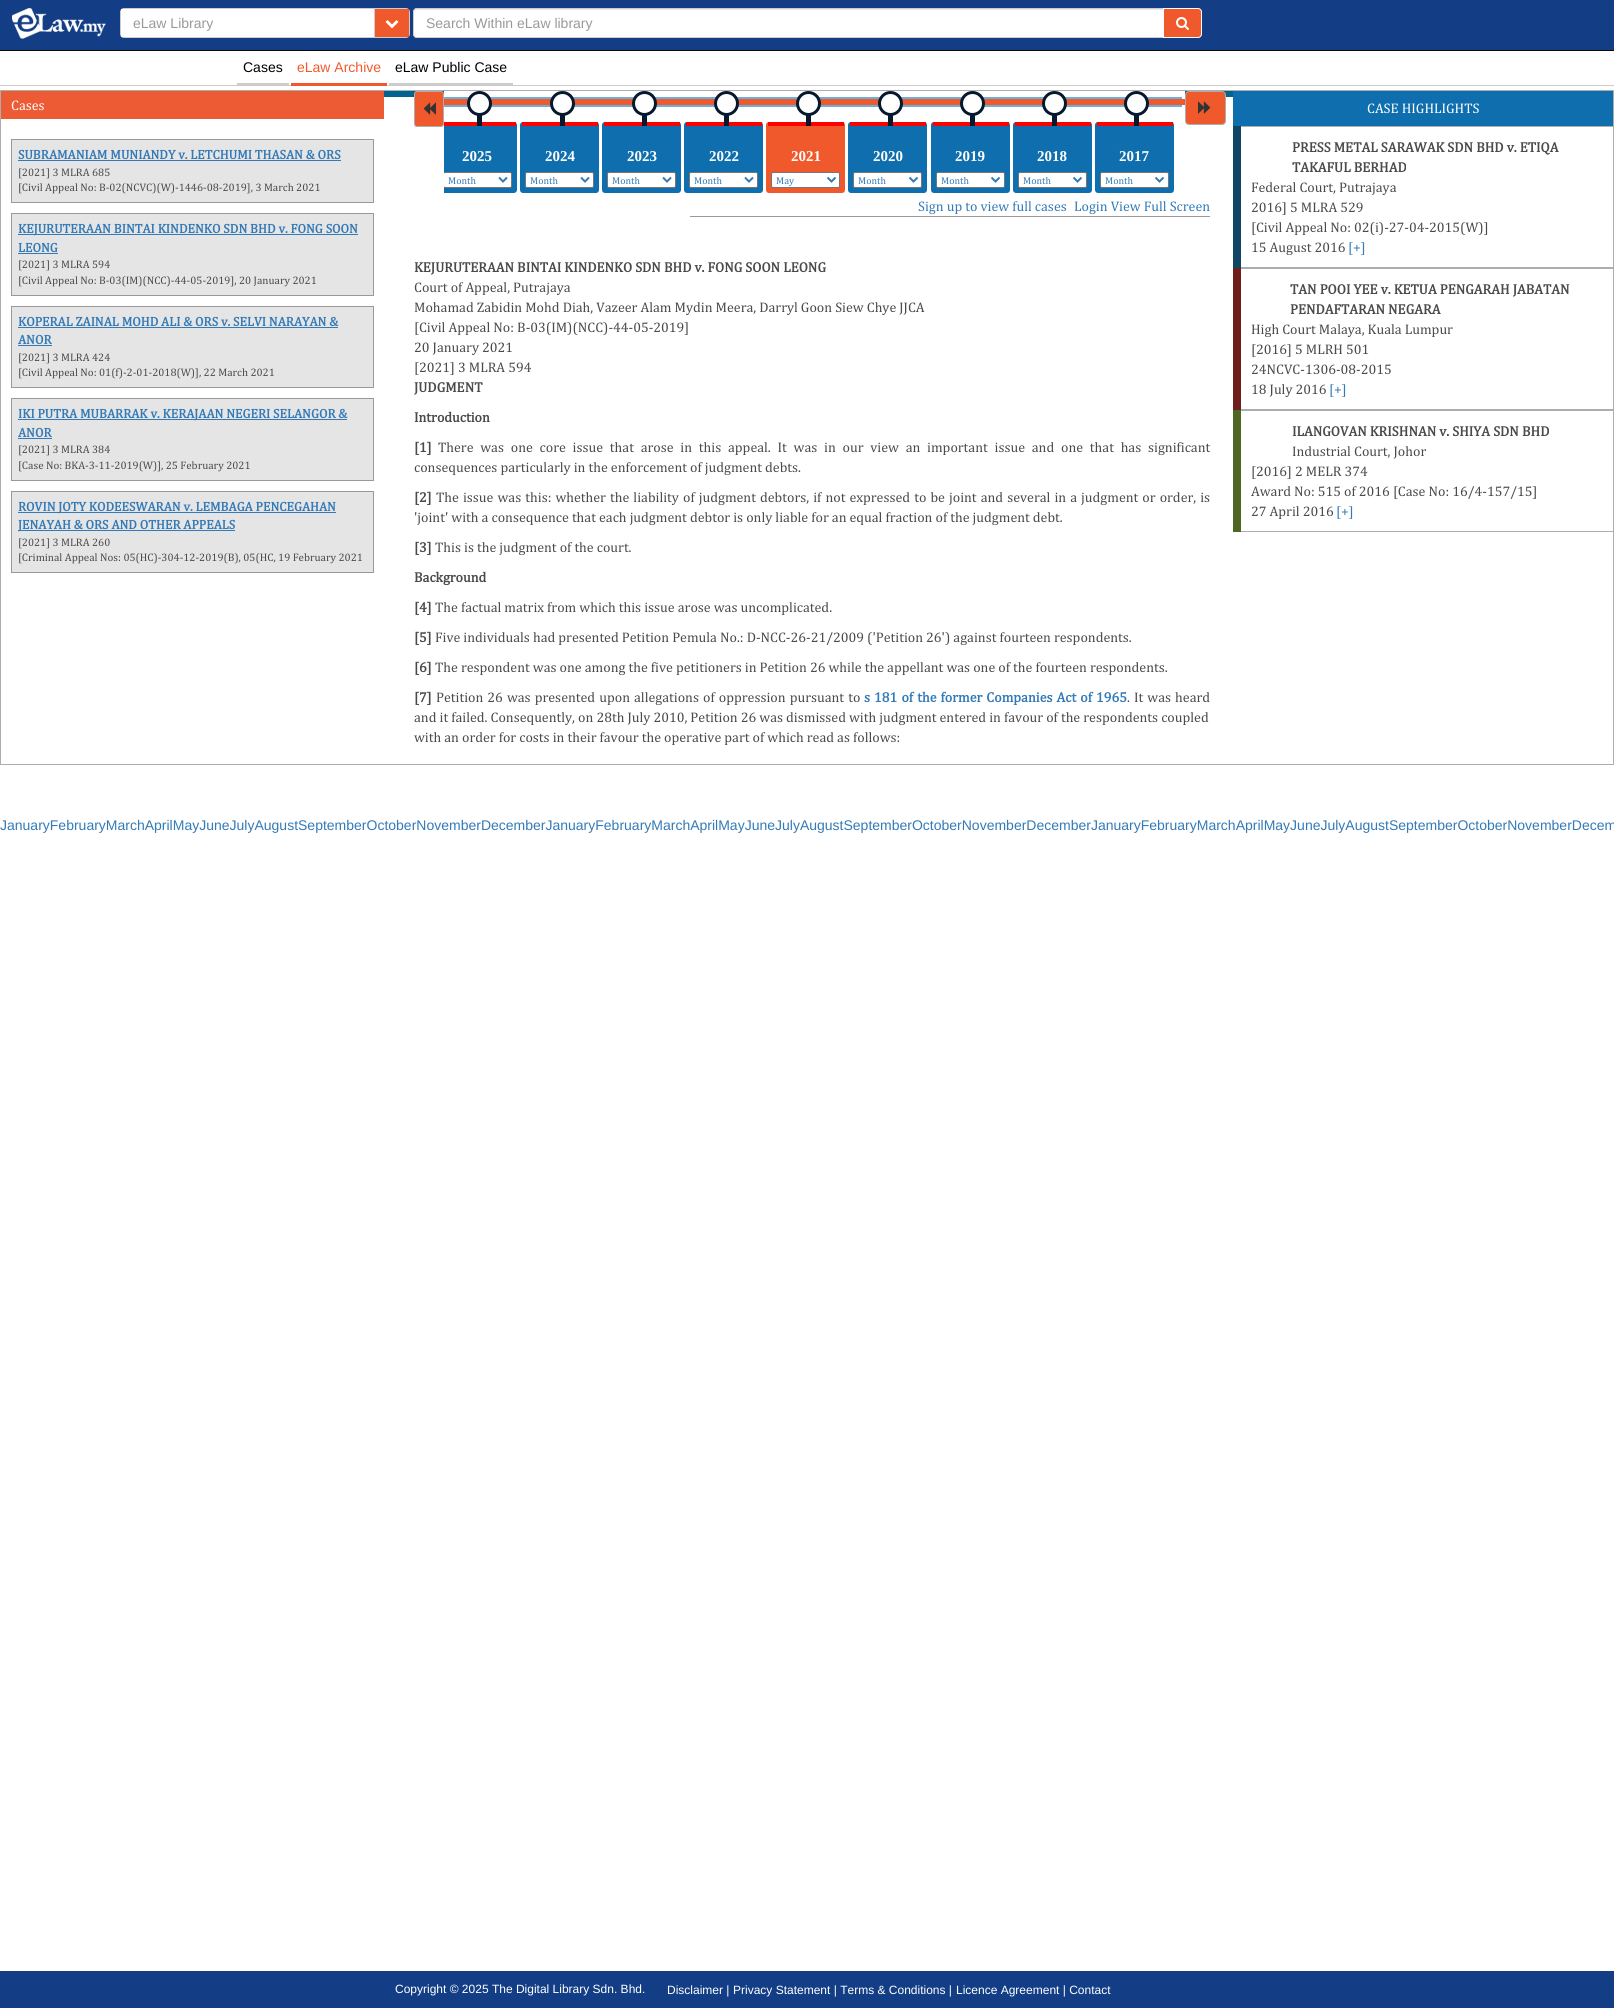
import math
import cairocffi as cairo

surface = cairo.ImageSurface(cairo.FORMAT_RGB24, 1614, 2008)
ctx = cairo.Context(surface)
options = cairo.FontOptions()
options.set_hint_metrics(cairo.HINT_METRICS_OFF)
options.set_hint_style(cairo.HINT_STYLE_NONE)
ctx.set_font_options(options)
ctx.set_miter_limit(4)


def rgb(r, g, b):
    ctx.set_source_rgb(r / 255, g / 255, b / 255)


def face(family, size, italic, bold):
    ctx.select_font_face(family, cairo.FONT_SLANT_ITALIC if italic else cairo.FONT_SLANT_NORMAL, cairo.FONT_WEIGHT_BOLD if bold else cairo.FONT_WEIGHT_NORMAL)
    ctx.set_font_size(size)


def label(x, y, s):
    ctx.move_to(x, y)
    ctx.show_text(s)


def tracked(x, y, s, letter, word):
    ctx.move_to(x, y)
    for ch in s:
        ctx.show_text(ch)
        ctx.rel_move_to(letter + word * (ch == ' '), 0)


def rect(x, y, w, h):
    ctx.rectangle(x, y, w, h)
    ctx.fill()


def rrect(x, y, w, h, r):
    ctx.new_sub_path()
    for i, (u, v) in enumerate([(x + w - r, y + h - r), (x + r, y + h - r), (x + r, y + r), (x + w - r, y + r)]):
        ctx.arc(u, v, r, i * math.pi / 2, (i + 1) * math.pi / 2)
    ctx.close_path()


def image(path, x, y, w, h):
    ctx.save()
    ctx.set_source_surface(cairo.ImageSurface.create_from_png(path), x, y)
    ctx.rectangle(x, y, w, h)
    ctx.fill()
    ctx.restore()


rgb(255, 255, 255)
ctx.paint()
rgb(19, 62, 134)
rect(0, 0, 1614, 50)
rgb(8, 8, 8)
rect(0, 50, 1614, 1)
image('image0.png', 12, 8, 94, 31)
rrect(120.5, 8.5, 289, 29, 3.5)
rgb(204, 204, 204)
ctx.set_line_width(1)
ctx.stroke()
rgb(255, 255, 255)
rect(121, 9, 253, 28)
rgb(204, 204, 204)
rect(374, 9, 1, 28)
face('Liberation Sans', 14, 0, 0)
rgb(153, 153, 153)
label(133, 28, 'eLaw Library')
rgb(240, 89, 43)
rect(375, 9, 34, 28)
image('image1.png', 385, 20, 14, 9)
rgb(255, 255, 255)
ctx.new_path()
ctx.move_to(417, 8)
ctx.line_to(1165, 8)
ctx.line_to(1165, 38)
ctx.line_to(417, 38)
ctx.curve_to(415, 38, 413, 36, 413, 34)
ctx.line_to(413, 12)
ctx.curve_to(413, 10, 415, 8, 417, 8)
ctx.close_path()
ctx.fill()
rgb(236, 236, 236)
ctx.new_path()
ctx.move_to(417, 10)
ctx.line_to(1164, 10)
ctx.line_to(1164, 9)
ctx.line_to(417, 9)
ctx.curve_to(415, 9, 414, 11, 414, 13)
ctx.curve_to(414, 11, 415, 10, 417, 10)
ctx.close_path()
ctx.fill()
ctx.new_path()
ctx.move_to(417, 8.5)
ctx.line_to(1164.5, 8.5)
ctx.line_to(1164.5, 37.5)
ctx.line_to(417, 37.5)
ctx.curve_to(415, 37.5, 413.5, 36, 413.5, 34)
ctx.line_to(413.5, 12)
ctx.curve_to(413.5, 10, 415, 8.5, 417, 8.5)
ctx.close_path()
rgb(204, 204, 204)
ctx.stroke()
rgb(153, 153, 153)
label(426, 28, 'Search Within eLaw library')
rgb(240, 89, 43)
ctx.new_path()
ctx.move_to(1163.5, 8.5)
ctx.line_to(1198, 8.5)
ctx.curve_to(1200, 8.5, 1201.5, 10, 1201.5, 12)
ctx.line_to(1201.5, 34)
ctx.curve_to(1201.5, 36, 1200, 37.5, 1198, 37.5)
ctx.line_to(1163.5, 37.5)
ctx.close_path()
ctx.fill_preserve()
rgb(255, 255, 255)
ctx.stroke()
image('image2.png', 1176, 17, 13, 13)
rgb(204, 204, 204)
rect(0, 85, 1614, 1)
rect(237, 83, 52, 2)
rgb(0, 0, 0)
label(243, 72, 'Cases')
rgb(240, 89, 43)
rect(291, 83, 96, 3)
label(297, 72, 'eLaw Archive')
rgb(204, 204, 204)
rect(389, 83, 124, 2)
rgb(0, 0, 0)
label(395, 72, 'eLaw Public Case')
rgb(0, 100, 142)
rect(384, 91, 849, 6)
ctx.rectangle(0.5, 90.5, 1613, 674)
rgb(173, 173, 173)
ctx.stroke()
rgb(237, 91, 52)
rect(1, 91, 383, 28)
face('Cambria', 14, 0, 0)
rgb(255, 255, 255)
label(11, 110, 'Cases')
rgb(229, 229, 229)
ctx.rectangle(11.5, 139.5, 362, 63)
ctx.fill_preserve()
rgb(153, 153, 153)
ctx.stroke()
face('Cambria', 13, 0, 1)
rgb(51, 122, 183)
label(18, 159, 'SUBRAMANIAM MUNIANDY v. LETCHUMI THASAN & ORS')
rect(18, 160, 323, 1)
face('Cambria', 11, 0, 0)
rgb(74, 74, 74)
label(18, 176, '[2021] 3 MLRA 685')
label(18, 191, '[Civil Appeal No: B-02(NCVC)(W)-1446-08-2019], 3 March 2021')
rgb(229, 229, 229)
ctx.rectangle(11.5, 213.5, 362, 82)
ctx.fill_preserve()
rgb(153, 153, 153)
ctx.stroke()
rgb(51, 122, 183)
rect(18, 234, 340, 1)
face('Cambria', 13, 0, 1)
label(18, 233, 'KEJURUTERAAN BINTAI KINDENKO SDN BHD v. FONG SOON')
label(18, 252, 'LEONG')
rect(18, 253, 40, 1)
face('Cambria', 11, 0, 0)
rgb(74, 74, 74)
label(18, 268, '[2021] 3 MLRA 594')
label(18, 284, '[Civil Appeal No: B-03(IM)(NCC)-44-05-2019], 20 January 2021')
rgb(229, 229, 229)
ctx.rectangle(11.5, 306.5, 362, 81)
ctx.fill_preserve()
rgb(153, 153, 153)
ctx.stroke()
face('Cambria', 13, 0, 1)
rgb(51, 122, 183)
label(18, 326, 'KOPERAL ZAINAL MOHD ALI & ORS v. SELVI NARAYAN &')
rect(18, 327, 320, 1)
label(18, 344, 'ANOR')
rect(18, 345, 34, 1)
face('Cambria', 11, 0, 0)
rgb(74, 74, 74)
label(18, 361, '[2021] 3 MLRA 424')
label(18, 376, '[Civil Appeal No: 01(f)-2-01-2018(W)], 22 March 2021')
rgb(229, 229, 229)
ctx.rectangle(11.5, 398.5, 362, 82)
ctx.fill_preserve()
rgb(153, 153, 153)
ctx.stroke()
rgb(51, 122, 183)
rect(18, 419, 329, 1)
face('Cambria', 13, 0, 1)
label(18, 418, 'IKI PUTRA MUBARRAK v. KERAJAAN NEGERI SELANGOR &')
label(18, 437, 'ANOR')
rect(18, 438, 34, 1)
face('Cambria', 11, 0, 0)
rgb(74, 74, 74)
label(18, 453, '[2021] 3 MLRA 384')
label(18, 469, '[Case No: BKA-3-11-2019(W)], 25 February 2021')
rgb(229, 229, 229)
ctx.rectangle(11.5, 491.5, 362, 81)
ctx.fill_preserve()
rgb(153, 153, 153)
ctx.stroke()
rgb(51, 122, 183)
rect(18, 512, 318, 1)
face('Cambria', 13, 0, 1)
label(18, 511, 'ROVIN JOTY KODEESWARAN v. LEMBAGA PENCEGAHAN')
rect(18, 530, 217, 1)
label(18, 529, 'JENAYAH & ORS AND OTHER APPEALS')
face('Cambria', 11, 0, 0)
rgb(74, 74, 74)
label(18, 546, '[2021] 3 MLRA 260')
label(18, 561, '[Criminal Appeal Nos: 05(HC)-304-12-2019(B), 05(HC, 19 February 2021')
rgb(240, 89, 43)
rrect(414.5, 91.5, 29, 35, 2.5)
ctx.fill_preserve()
rgb(173, 173, 173)
ctx.stroke()
image('image3.png', 423, 102, 13, 13)
rgb(240, 89, 43)
rrect(1185.5, 91.5, 40, 33, 3.5)
ctx.fill_preserve()
rgb(173, 173, 173)
ctx.stroke()
image('image4.png', 1198, 101, 13, 13)
rgb(255, 255, 255)
rect(444, 91, 741, 6)
rgb(15, 111, 174)
ctx.new_path()
ctx.move_to(444, 122)
ctx.line_to(514, 122)
ctx.curve_to(515.5, 122, 517, 123.5, 517, 125)
ctx.line_to(517, 190)
ctx.curve_to(517, 191.5, 515.5, 193, 514, 193)
ctx.line_to(444, 193)
ctx.close_path()
ctx.fill()
rgb(255, 0, 0)
rect(444, 122, 72, 4)
rgb(106, 176, 222)
rect(444, 97, 489, 10)
rgb(240, 89, 43)
rect(444, 99, 495, 6)
rgb(6, 24, 46)
rect(477, 115, 5, 11)
rgb(255, 255, 255)
ctx.arc(479.5, 103.5, 11, 0, 2 * math.pi)
ctx.fill_preserve()
rgb(6, 24, 46)
ctx.set_line_width(3)
ctx.stroke()
face('Liberation Serif', 15, 0, 1)
rgb(255, 255, 255)
label(462, 161, '2025')
ctx.save()
ctx.rectangle(444, 91, 741, 105)
ctx.clip()
rrect(443.5, 172.5, 68, 15, 1.5)
ctx.fill_preserve()
rgb(118, 118, 118)
ctx.set_line_width(1)
ctx.stroke()
ctx.restore()
ctx.new_path()
ctx.move_to(499, 177.5)
ctx.line_to(503, 181.5)
ctx.line_to(507, 177.5)
rgb(51, 122, 183)
ctx.set_line_width(2)
ctx.stroke()
face('Cambria', 10, 0, 0)
label(448, 184, 'Month')
rgb(15, 111, 174)
rrect(520, 122, 79, 71, 3)
ctx.fill()
rgb(255, 0, 0)
rect(522, 122, 76, 4)
rgb(6, 24, 46)
rect(560, 115, 5, 11)
rgb(255, 255, 255)
ctx.arc(562.5, 103.5, 11, 0, 2 * math.pi)
ctx.fill_preserve()
rgb(6, 24, 46)
ctx.set_line_width(3)
ctx.stroke()
face('Liberation Serif', 15, 0, 1)
rgb(255, 255, 255)
label(545, 161, '2024')
rrect(525.5, 172.5, 68, 15, 1.5)
ctx.fill_preserve()
rgb(118, 118, 118)
ctx.set_line_width(1)
ctx.stroke()
ctx.new_path()
ctx.move_to(581, 177.5)
ctx.line_to(585, 181.5)
ctx.line_to(589, 177.5)
rgb(51, 122, 183)
ctx.set_line_width(2)
ctx.stroke()
face('Cambria', 10, 0, 0)
label(530, 184, 'Month')
rgb(15, 111, 174)
rrect(602, 122, 79, 71, 3)
ctx.fill()
rgb(255, 0, 0)
rect(604, 122, 76, 4)
rgb(6, 24, 46)
rect(642, 115, 5, 11)
rgb(255, 255, 255)
ctx.arc(644.5, 103.5, 11, 0, 2 * math.pi)
ctx.fill_preserve()
rgb(6, 24, 46)
ctx.set_line_width(3)
ctx.stroke()
face('Liberation Serif', 15, 0, 1)
rgb(255, 255, 255)
label(627, 161, '2023')
rrect(607.5, 172.5, 68, 15, 1.5)
ctx.fill_preserve()
rgb(118, 118, 118)
ctx.set_line_width(1)
ctx.stroke()
ctx.new_path()
ctx.move_to(663, 177.5)
ctx.line_to(667, 181.5)
ctx.line_to(671, 177.5)
rgb(51, 122, 183)
ctx.set_line_width(2)
ctx.stroke()
face('Cambria', 10, 0, 0)
label(612, 184, 'Month')
rgb(15, 111, 174)
rrect(684, 122, 79, 71, 3)
ctx.fill()
rgb(255, 0, 0)
rect(686, 122, 76, 4)
rgb(6, 24, 46)
rect(724, 115, 5, 11)
rgb(255, 255, 255)
ctx.arc(726.5, 103.5, 11, 0, 2 * math.pi)
ctx.fill_preserve()
rgb(6, 24, 46)
ctx.set_line_width(3)
ctx.stroke()
face('Liberation Serif', 15, 0, 1)
rgb(255, 255, 255)
label(709, 161, '2022')
rrect(689.5, 172.5, 68, 15, 1.5)
ctx.fill_preserve()
rgb(118, 118, 118)
ctx.set_line_width(1)
ctx.stroke()
ctx.new_path()
ctx.move_to(745, 177.5)
ctx.line_to(749, 181.5)
ctx.line_to(753, 177.5)
rgb(51, 122, 183)
ctx.set_line_width(2)
ctx.stroke()
face('Cambria', 10, 0, 0)
label(694, 184, 'Month')
rgb(240, 89, 43)
rrect(766, 122, 79, 71, 3)
ctx.fill()
rgb(255, 0, 0)
rect(768, 122, 76, 4)
rgb(6, 24, 46)
rect(806, 115, 5, 11)
rgb(255, 255, 255)
ctx.arc(808.5, 103.5, 11, 0, 2 * math.pi)
ctx.fill_preserve()
rgb(6, 24, 46)
ctx.set_line_width(3)
ctx.stroke()
face('Liberation Serif', 15, 0, 1)
rgb(255, 255, 255)
label(791, 161, '2021')
rrect(771.5, 172.5, 68, 15, 1.5)
ctx.fill_preserve()
rgb(118, 118, 118)
ctx.set_line_width(1)
ctx.stroke()
ctx.new_path()
ctx.move_to(827.5, 177.5)
ctx.line_to(831.5, 181.5)
ctx.line_to(835.5, 177.5)
rgb(51, 122, 183)
ctx.set_line_width(2)
ctx.stroke()
face('Cambria', 10, 0, 0)
label(776, 184, 'May')
rgb(15, 111, 174)
rrect(848, 122, 79, 71, 3)
ctx.fill()
rgb(255, 0, 0)
rect(850, 122, 76, 4)
rgb(6, 24, 46)
rect(888, 115, 5, 11)
rgb(255, 255, 255)
ctx.arc(890.5, 103.5, 11, 0, 2 * math.pi)
ctx.fill_preserve()
rgb(6, 24, 46)
ctx.set_line_width(3)
ctx.stroke()
face('Liberation Serif', 15, 0, 1)
rgb(255, 255, 255)
label(873, 161, '2020')
rrect(853.5, 172.5, 68, 15, 1.5)
ctx.fill_preserve()
rgb(118, 118, 118)
ctx.set_line_width(1)
ctx.stroke()
ctx.new_path()
ctx.move_to(909.5, 177.5)
ctx.line_to(913.5, 181.5)
ctx.line_to(917.5, 177.5)
rgb(51, 122, 183)
ctx.set_line_width(2)
ctx.stroke()
face('Cambria', 10, 0, 0)
label(858, 184, 'Month')
rgb(15, 111, 174)
rrect(931, 122, 79, 71, 3)
ctx.fill()
rgb(255, 0, 0)
rect(933, 122, 76, 4)
rgb(106, 176, 222)
rect(933, 97, 82, 10)
rgb(240, 89, 43)
rect(931, 99, 90, 6)
rgb(6, 24, 46)
rect(970, 115, 5, 11)
rgb(255, 255, 255)
ctx.arc(972.5, 103.5, 11, 0, 2 * math.pi)
ctx.fill_preserve()
rgb(6, 24, 46)
ctx.set_line_width(3)
ctx.stroke()
face('Liberation Serif', 15, 0, 1)
rgb(255, 255, 255)
label(955, 161, '2019')
rrect(936.5, 172.5, 68, 15, 1.5)
ctx.fill_preserve()
rgb(118, 118, 118)
ctx.set_line_width(1)
ctx.stroke()
ctx.new_path()
ctx.move_to(991.5, 177.5)
ctx.line_to(995.5, 181.5)
ctx.line_to(999.5, 177.5)
rgb(51, 122, 183)
ctx.set_line_width(2)
ctx.stroke()
face('Cambria', 10, 0, 0)
label(941, 184, 'Month')
rgb(15, 111, 174)
rrect(1013, 122, 79, 71, 3)
ctx.fill()
rgb(255, 0, 0)
rect(1015, 122, 76, 4)
rgb(106, 176, 222)
rect(1015, 97, 82, 10)
rgb(240, 89, 43)
rect(1013, 99, 90, 6)
rgb(6, 24, 46)
rect(1052, 115, 5, 11)
rgb(255, 255, 255)
ctx.arc(1054.5, 103.5, 11, 0, 2 * math.pi)
ctx.fill_preserve()
rgb(6, 24, 46)
ctx.set_line_width(3)
ctx.stroke()
face('Liberation Serif', 15, 0, 1)
rgb(255, 255, 255)
label(1037, 161, '2018')
rrect(1018.5, 172.5, 68, 15, 1.5)
ctx.fill_preserve()
rgb(118, 118, 118)
ctx.set_line_width(1)
ctx.stroke()
ctx.new_path()
ctx.move_to(1073.5, 177.5)
ctx.line_to(1077.5, 181.5)
ctx.line_to(1081.5, 177.5)
rgb(51, 122, 183)
ctx.set_line_width(2)
ctx.stroke()
face('Cambria', 10, 0, 0)
label(1023, 184, 'Month')
rgb(15, 111, 174)
rrect(1095, 122, 79, 71, 3)
ctx.fill()
rgb(255, 0, 0)
rect(1097, 122, 76, 4)
rgb(106, 176, 222)
rect(1097, 97, 85, 10)
rgb(240, 89, 43)
rect(1095, 99, 90, 6)
rgb(6, 24, 46)
rect(1134, 115, 5, 11)
rgb(255, 255, 255)
ctx.arc(1136.5, 103.5, 11, 0, 2 * math.pi)
ctx.fill_preserve()
rgb(6, 24, 46)
ctx.set_line_width(3)
ctx.stroke()
face('Liberation Serif', 15, 0, 1)
rgb(255, 255, 255)
label(1119, 161, '2017')
rrect(1100.5, 172.5, 68, 15, 1.5)
ctx.fill_preserve()
rgb(118, 118, 118)
ctx.set_line_width(1)
ctx.stroke()
ctx.new_path()
ctx.move_to(1155.5, 177.5)
ctx.line_to(1159.5, 181.5)
ctx.line_to(1163.5, 177.5)
rgb(51, 122, 183)
ctx.set_line_width(2)
ctx.stroke()
face('Cambria', 10, 0, 0)
label(1105, 184, 'Month')
rgb(153, 153, 153)
rect(690, 216, 520, 1)
face('Cambria', 14, 0, 0)
rgb(51, 122, 183)
label(918, 211, 'Sign up to view full cases')
label(1074, 211, 'Login View Full Screen')
face('Cambria', 14, 0, 1)
rgb(74, 74, 74)
label(414, 272, 'KEJURUTERAAN BINTAI KINDENKO SDN BHD v. FONG SOON LEONG')
face('Cambria', 14, 0, 0)
label(414, 292, 'Court of Appeal, Putrajaya')
label(414, 312, 'Mohamad Zabidin Mohd Diah, Vazeer Alam Mydin Meera, Darryl Goon Siew Chye JJCA')
label(414, 332, '[Civil Appeal No: B-03(IM)(NCC)-44-05-2019]')
label(414, 352, '20 January 2021')
label(414, 372, '[2021] 3 MLRA 594')
face('Cambria', 14, 0, 1)
label(414, 392, 'JUDGMENT')
label(414, 422, 'Introduction')
label(414, 452, '[1]')
face('Cambria', 14, 0, 0)
tracked(438, 452, 'There was one core issue that arose in this appeal. It was in our view an important issue and one that has significant', 0, 3.7)
label(414, 472, 'consequences particularly in the enforcement of judgment debts.')
face('Cambria', 14, 0, 1)
label(414, 502, '[2]')
face('Cambria', 14, 0, 0)
tracked(436, 502, 'The issue was this: whether the liability of judgment debtors, if not expressed to be joint and several in a judgment or order, is', 0, 1)
label(414, 522, '\'joint\' with a consequence that each judgment debtor is only liable for an equal fraction of the judgment debt.')
face('Cambria', 14, 0, 1)
label(414, 552, '[3]')
face('Cambria', 14, 0, 0)
label(435, 552, 'This is the judgment of the court.')
face('Cambria', 14, 0, 1)
label(414, 582, 'Background')
label(414, 612, '[4]')
face('Cambria', 14, 0, 0)
label(435, 612, 'The factual matrix from which this issue arose was uncomplicated.')
face('Cambria', 14, 0, 1)
label(414, 642, '[5]')
face('Cambria', 14, 0, 0)
label(435, 642, 'Five individuals had presented Petition Pemula No.: D-NCC-26-21/2009 (\'Petition 26\') against fourteen respondents.')
face('Cambria', 14, 0, 1)
label(414, 672, '[6]')
face('Cambria', 14, 0, 0)
label(435, 672, 'The respondent was one among the five petitioners in Petition 26 while the appellant was one of the fourteen respondents.')
face('Cambria', 14, 0, 1)
label(414, 702, '[7]')
face('Cambria', 14, 0, 0)
tracked(436, 702, 'Petition 26 was presented upon allegations of oppression pursuant to', 0, 1)
face('Cambria', 14, 0, 1)
rgb(51, 122, 183)
tracked(864, 702, 's 181 of the former Companies Act of 1965', 0, 1)
face('Cambria', 14, 0, 0)
rgb(74, 74, 74)
tracked(1127, 702, '. It was heard', 0, 1)
label(414, 722, 'and it failed. Consequently, on 28th July 2010, Petition 26 was dismissed with judgment entered in favour of the respondents coupled')
label(414, 742, 'with an order for costs in their favour the operative part of which read as follows:')
rgb(15, 111, 174)
rect(1233, 91, 380, 35)
rgb(255, 255, 255)
label(1367, 113, 'CASE HIGHLIGHTS')
rgb(17, 69, 101)
rect(1233, 126, 8, 142)
rgb(173, 173, 173)
rect(1241, 126, 372, 1)
rect(1241, 267, 372, 2)
face('Cambria', 14, 0, 1)
rgb(74, 74, 74)
label(1292, 152, 'PRESS METAL SARAWAK SDN BHD v. ETIQA')
label(1292, 172, 'TAKAFUL BERHAD')
face('Cambria', 14, 0, 0)
label(1251, 192, 'Federal Court, Putrajaya')
label(1251, 212, '2016] 5 MLRA 529')
label(1251, 232, '[Civil Appeal No: 02(i)-27-04-2015(W)]')
label(1251, 252, '15 August 2016')
rgb(51, 122, 183)
label(1348, 252, '[+]')
rgb(112, 30, 27)
rect(1233, 268, 8, 142)
rgb(173, 173, 173)
rect(1241, 409, 372, 2)
face('Cambria', 14, 0, 1)
rgb(74, 74, 74)
label(1290, 294, 'TAN POOI YEE v. KETUA PENGARAH JABATAN')
label(1290, 314, 'PENDAFTARAN NEGARA')
face('Cambria', 14, 0, 0)
label(1251, 334, 'High Court Malaya, Kuala Lumpur')
label(1251, 354, '[2016] 5 MLRH 501')
label(1251, 374, '24NCVC-1306-08-2015')
label(1251, 394, '18 July 2016')
rgb(51, 122, 183)
label(1329, 394, '[+]')
rgb(79, 102, 35)
rect(1233, 410, 8, 122)
rgb(173, 173, 173)
rect(1241, 531, 372, 1)
face('Cambria', 14, 0, 1)
rgb(74, 74, 74)
label(1292, 436, 'ILANGOVAN KRISHNAN v. SHIYA SDN BHD')
face('Cambria', 14, 0, 0)
label(1292, 456, 'Industrial Court, Johor')
label(1251, 476, '[2016] 2 MELR 374')
label(1251, 496, 'Award No: 515 of 2016 [Case No: 16/4-157/15]')
label(1251, 516, '27 April 2016')
rgb(51, 122, 183)
label(1336, 516, '[+]')
face('Liberation Sans', 14, 0, 0)
label(0, 830, 'JanuaryFebruaryMarchAprilMayJuneJulyAugustSeptemberOctoberNovemberDecemberJanuaryFebruaryMarchAprilMayJuneJulyAugustSeptemberOctoberNovemberDecemberJanuaryFebruaryMarchAprilMayJuneJulyAugustSeptemberOctoberNovemberDecem')
rgb(19, 62, 134)
rect(0, 1971, 1614, 37)
face('Liberation Sans', 12, 0, 0)
rgb(255, 255, 255)
label(395, 1993, 'Copyright © 2025 The Digital Library Sdn. Bhd.')
label(667, 1994, 'Disclaimer |')
label(733, 1994, 'Privacy Statement | Terms & Conditions |')
label(956, 1994, 'Licence Agreement | Contact')
surface.write_to_png('render.png')
